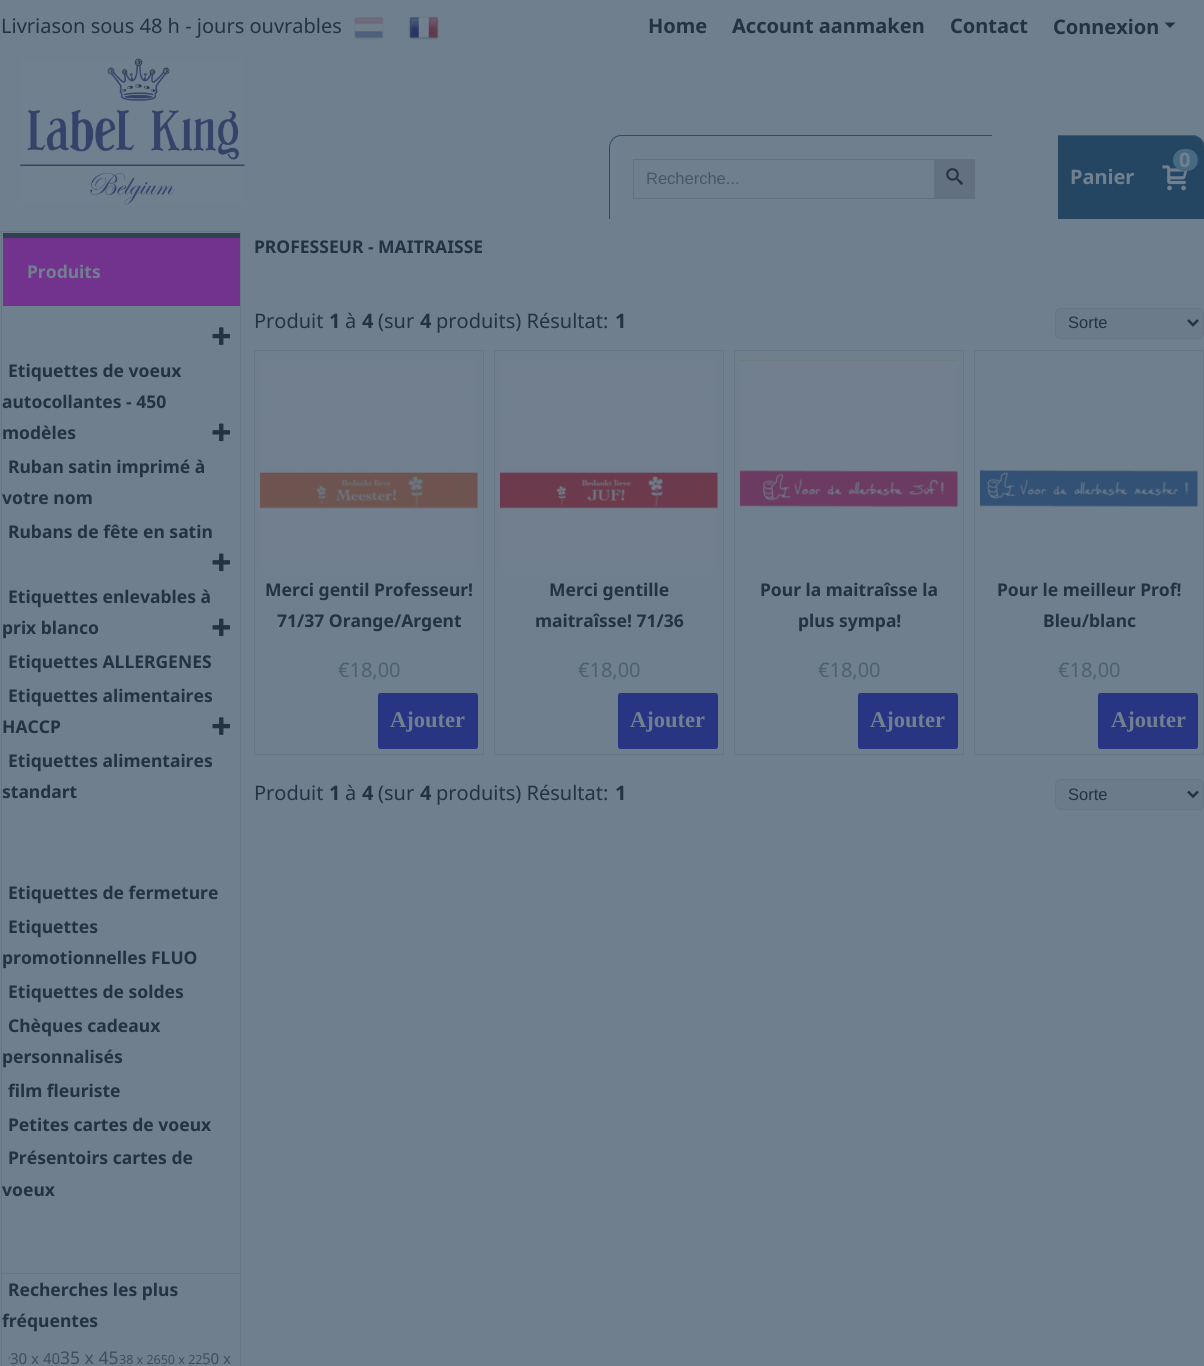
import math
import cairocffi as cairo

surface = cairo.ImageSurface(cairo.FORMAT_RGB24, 1204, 1366)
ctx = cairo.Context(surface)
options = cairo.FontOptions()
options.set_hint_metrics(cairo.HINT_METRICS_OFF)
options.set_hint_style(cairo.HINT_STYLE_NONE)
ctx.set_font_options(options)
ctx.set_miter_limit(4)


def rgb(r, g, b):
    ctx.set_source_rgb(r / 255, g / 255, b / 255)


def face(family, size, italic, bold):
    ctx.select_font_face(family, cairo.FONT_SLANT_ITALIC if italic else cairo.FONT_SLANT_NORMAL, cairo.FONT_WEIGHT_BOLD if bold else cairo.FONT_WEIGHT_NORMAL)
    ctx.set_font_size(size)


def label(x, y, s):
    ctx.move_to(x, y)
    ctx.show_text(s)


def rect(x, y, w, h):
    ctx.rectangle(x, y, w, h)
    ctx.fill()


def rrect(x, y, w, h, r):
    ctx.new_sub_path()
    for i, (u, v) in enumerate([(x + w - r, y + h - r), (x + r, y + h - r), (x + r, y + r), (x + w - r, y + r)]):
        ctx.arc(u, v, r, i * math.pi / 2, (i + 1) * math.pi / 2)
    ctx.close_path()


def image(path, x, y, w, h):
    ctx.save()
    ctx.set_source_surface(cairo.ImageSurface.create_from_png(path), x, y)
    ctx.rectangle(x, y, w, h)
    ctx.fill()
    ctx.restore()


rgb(112, 127, 141)
ctx.paint()
face('Noto Sans', 20, 0, 0)
rgb(36, 51, 66)
label(1, 33, 'Livriason sous 48 h - jours ouvrables')
image('image0.png', 354, 17, 30, 23)
image('image1.png', 408, 16, 31, 24)
face('Noto Sans', 20, 0, 1)
label(648, 33, 'Home')
label(732, 33, 'Account aanmaken')
label(950, 33, 'Contact')
label(1053, 34, 'Connexion')
ctx.new_path()
ctx.move_to(1164.5, 22.5)
ctx.line_to(1170, 28)
ctx.line_to(1175.5, 22.5)
ctx.close_path()
ctx.fill()
image('image2.png', 20, 58, 225, 147)
rgb(36, 78, 110)
ctx.set_fill_rule(cairo.FILL_RULE_EVEN_ODD)
ctx.new_path()
ctx.move_to(621, 135)
ctx.line_to(992, 135)
ctx.line_to(992, 219)
ctx.line_to(609, 219)
ctx.line_to(609, 148)
ctx.curve_to(609, 141, 614, 135, 621, 135)
ctx.close_path()
ctx.move_to(621, 136)
ctx.line_to(992, 136)
ctx.line_to(992, 219)
ctx.line_to(610, 219)
ctx.line_to(610, 148)
ctx.curve_to(610, 141, 615, 136, 621, 136)
ctx.close_path()
ctx.fill()
ctx.rectangle(633.5, 159.5, 301, 39)
rgb(98, 112, 127)
ctx.set_line_width(1)
ctx.stroke()
face('Liberation Sans', 16.5, 0, 0)
rgb(72, 86, 101)
label(646, 184, 'Recherche...')
rgb(98, 112, 127)
rect(935, 159, 40, 40)
image('image3.png', 946, 168, 17, 17)
rgb(36, 70, 99)
ctx.new_path()
ctx.move_to(1058, 135)
ctx.line_to(1192, 135)
ctx.curve_to(1199, 135, 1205, 141, 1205, 148)
ctx.line_to(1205, 219)
ctx.line_to(1058, 219)
ctx.close_path()
ctx.fill()
rgb(71, 87, 103)
ctx.new_path()
ctx.move_to(1058, 135)
ctx.line_to(1192, 135)
ctx.curve_to(1199, 135, 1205, 141, 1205, 148)
ctx.line_to(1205, 219)
ctx.line_to(1058, 219)
ctx.close_path()
ctx.move_to(1058, 136)
ctx.line_to(1192, 136)
ctx.curve_to(1199, 136, 1204, 141, 1204, 148)
ctx.line_to(1204, 219)
ctx.line_to(1058, 219)
ctx.close_path()
ctx.fill()
image('image4.png', 1162, 165, 26, 26)
rgb(70, 106, 130)
rrect(1173, 149, 25, 22, 11)
ctx.fill()
face('Noto Sans', 20, 0, 1)
rgb(113, 128, 142)
label(1179, 167, '0')
label(1070, 184, 'Panier')
rgb(102, 117, 132)
rect(1, 231, 240, 1)
rect(240, 231, 1, 1042)
rect(1, 231, 1, 1042)
rgb(113, 51, 142)
rect(3, 238, 237, 68)
rgb(50, 65, 80)
rect(3, 233, 237, 5)
face('Noto Sans', 17.5, 0, 1)
rgb(113, 128, 142)
label(27, 278, 'Produits')
image('image5.png', 212, 327, 18, 18)
rgb(36, 51, 66)
label(8, 377, 'Etiquettes de voeux')
label(2, 408, 'autocollantes - 450')
label(2, 439, 'modèles')
image('image6.png', 212, 423, 18, 19)
label(8, 473, 'Ruban satin imprimé à')
label(2, 504, 'votre nom')
label(8, 538, 'Rubans de fête en satin')
image('image6.png', 212, 553, 18, 19)
label(8, 603, 'Etiquettes enlevables à')
label(2, 634, 'prix blanco')
image('image6.png', 212, 618, 18, 19)
label(8, 668, 'Etiquettes ALLERGENES')
label(8, 702, 'Etiquettes alimentaires')
label(2, 733, 'HACCP')
image('image5.png', 212, 717, 18, 18)
label(8, 767, 'Etiquettes alimentaires')
label(2, 798, 'standart')
label(8, 899, 'Etiquettes de fermeture')
label(8, 933, 'Etiquettes')
label(2, 964, 'promotionnelles FLUO')
label(8, 998, 'Etiquettes de soldes')
label(8, 1032, 'Chèques cadeaux')
label(2, 1063, 'personnalisés')
label(8, 1097, 'film fleuriste')
label(8, 1131, 'Petites cartes de voeux')
label(8, 1164, 'Présentoirs cartes de')
label(2, 1196, 'voeux')
ctx.rectangle(1.5, 1273.5, 239, 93)
rgb(102, 117, 132)
ctx.stroke()
rgb(36, 51, 66)
label(8, 1296, 'Recherches les plus')
label(2, 1327, 'fréquentes')
face('Noto Sans', 10, 0, 0)
rgb(63, 77, 92)
label(8, 1364, '\'')
face('Noto Sans', 15, 0, 0)
label(10, 1364, '30 x 40')
face('Noto Sans', 17.5, 0, 0)
label(60, 1364, '35 x 45')
face('Noto Sans', 12.5, 0, 0)
label(119, 1364, '38 x 2650 x 22')
face('Noto Sans', 15, 0, 0)
label(202, 1364, '50 x')
face('Noto Sans', 17.5, 0, 1)
rgb(36, 51, 66)
label(254, 253, 'PROFESSEUR - MAITRAISSE')
face('Noto Sans', 20, 0, 0)
label(254, 328, 'Produit')
face('Noto Sans', 20, 0, 1)
label(329, 328, '1')
face('Noto Sans', 20, 0, 0)
label(345, 328, 'à')
face('Noto Sans', 20, 0, 1)
label(362, 328, '4')
face('Noto Sans', 20, 0, 0)
label(378, 328, '(sur')
face('Noto Sans', 20, 0, 1)
label(420, 328, '4')
face('Noto Sans', 20, 0, 0)
label(436, 328, 'produits) Résultat:')
face('Noto Sans', 20, 0, 1)
label(615, 328, '1')
rgb(108, 123, 138)
rrect(1055.5, 308.5, 148, 30, 5.5)
ctx.fill_preserve()
rgb(102, 116, 131)
ctx.stroke()
ctx.new_path()
ctx.move_to(1188, 320)
ctx.line_to(1193, 325)
ctx.line_to(1198, 320)
rgb(36, 51, 66)
ctx.set_line_width(2.5)
ctx.stroke()
face('Liberation Sans', 16.5, 0, 0)
label(1068, 328, 'Sorte')
ctx.rectangle(254.5, 350.5, 229, 404)
rgb(102, 117, 132)
ctx.set_line_width(1)
ctx.stroke()
image('image7.png', 260, 360, 218, 209)
face('Noto Sans', 17.5, 0, 1)
rgb(36, 51, 66)
label(265, 596, 'Merci gentil Professeur!')
label(277, 627, '71/37 Orange/Argent')
face('Noto Sans', 20, 0, 0)
rgb(77, 97, 107)
label(338, 677, '€18,00')
rgb(39, 53, 130)
rrect(378, 693, 100, 56, 2.5)
ctx.fill()
face('Liberation Serif', 22.5, 0, 1)
rgb(113, 128, 142)
label(390, 727, 'Ajouter')
ctx.rectangle(494.5, 350.5, 229, 404)
rgb(102, 117, 132)
ctx.stroke()
image('image8.png', 500, 360, 218, 209)
face('Noto Sans', 17.5, 0, 1)
rgb(36, 51, 66)
label(549, 596, 'Merci gentille')
label(535, 627, 'maitraîsse! 71/36')
face('Noto Sans', 20, 0, 0)
rgb(77, 97, 107)
label(578, 677, '€18,00')
rgb(39, 53, 130)
rrect(618, 693, 100, 56, 2.5)
ctx.fill()
face('Liberation Serif', 22.5, 0, 1)
rgb(113, 128, 142)
label(630, 727, 'Ajouter')
ctx.rectangle(734.5, 350.5, 229, 404)
rgb(102, 117, 132)
ctx.stroke()
image('image9.png', 740, 360, 218, 148)
face('Noto Sans', 17.5, 0, 1)
rgb(36, 51, 66)
label(760, 596, 'Pour la maitraîsse la')
label(798, 627, 'plus sympa!')
face('Noto Sans', 20, 0, 0)
rgb(77, 97, 107)
label(818, 677, '€18,00')
rgb(39, 53, 130)
rrect(858, 693, 100, 56, 2.5)
ctx.fill()
face('Liberation Serif', 22.5, 0, 1)
rgb(113, 128, 142)
label(870, 727, 'Ajouter')
ctx.rectangle(974.5, 350.5, 229, 404)
rgb(102, 117, 132)
ctx.stroke()
image('image10.png', 980, 469, 218, 38)
face('Noto Sans', 17.5, 0, 1)
rgb(36, 51, 66)
label(997, 596, 'Pour le meilleur Prof!')
label(1043, 627, 'Bleu/blanc')
face('Noto Sans', 20, 0, 0)
rgb(77, 97, 107)
label(1058, 677, '€18,00')
rgb(39, 53, 130)
rrect(1098, 693, 100, 56, 2.5)
ctx.fill()
face('Liberation Serif', 22.5, 0, 1)
rgb(113, 128, 142)
label(1111, 727, 'Ajouter')
face('Noto Sans', 20, 0, 0)
rgb(36, 51, 66)
label(254, 800, 'Produit')
face('Noto Sans', 20, 0, 1)
label(329, 800, '1')
face('Noto Sans', 20, 0, 0)
label(345, 800, 'à')
face('Noto Sans', 20, 0, 1)
label(362, 800, '4')
face('Noto Sans', 20, 0, 0)
label(378, 800, '(sur')
face('Noto Sans', 20, 0, 1)
label(420, 800, '4')
face('Noto Sans', 20, 0, 0)
label(436, 800, 'produits) Résultat:')
face('Noto Sans', 20, 0, 1)
label(615, 800, '1')
rgb(108, 123, 138)
rrect(1055.5, 779.5, 148, 30, 5.5)
ctx.fill_preserve()
rgb(102, 116, 131)
ctx.stroke()
ctx.new_path()
ctx.move_to(1188, 791.5)
ctx.line_to(1193, 796.5)
ctx.line_to(1198, 791.5)
rgb(36, 51, 66)
ctx.set_line_width(2.5)
ctx.stroke()
face('Liberation Sans', 16.5, 0, 0)
label(1068, 800, 'Sorte')
surface.write_to_png('render.png')
